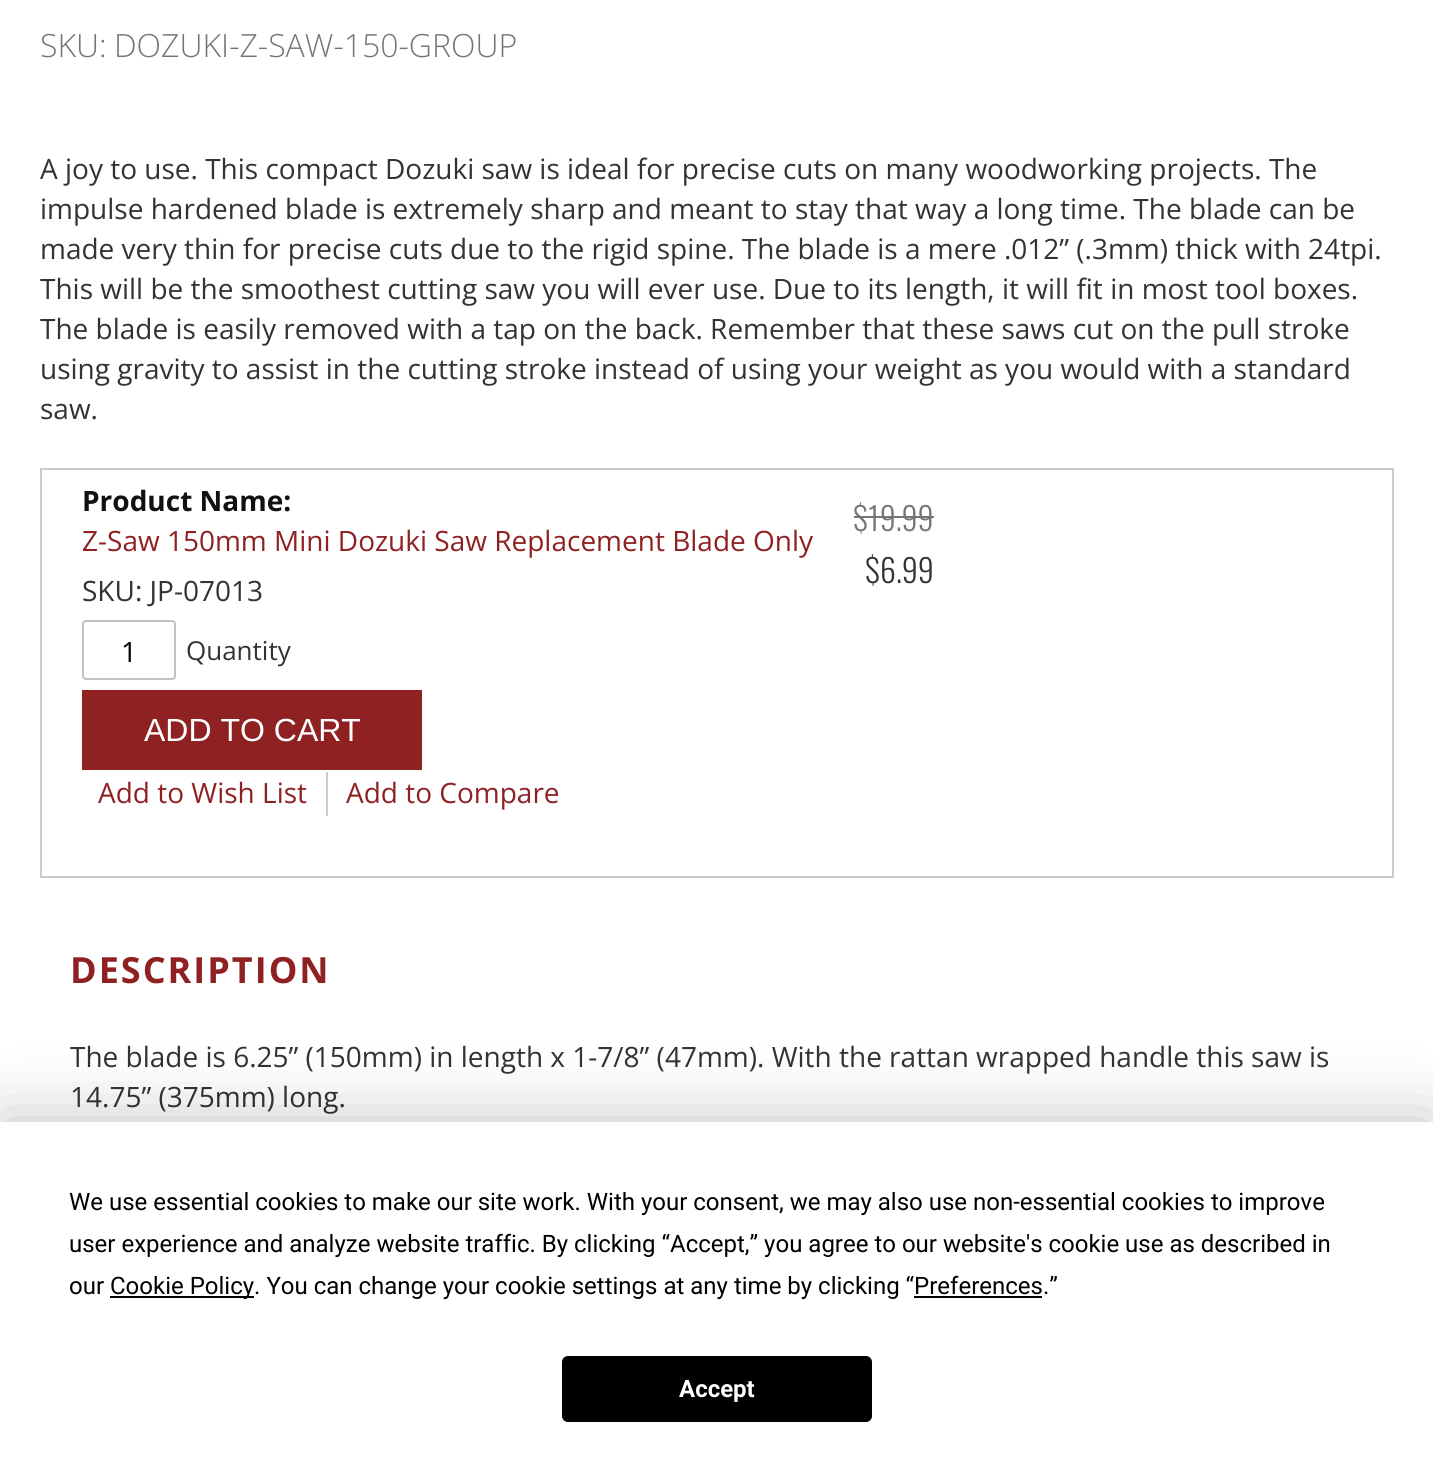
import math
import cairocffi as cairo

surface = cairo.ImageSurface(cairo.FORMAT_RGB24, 1433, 1481)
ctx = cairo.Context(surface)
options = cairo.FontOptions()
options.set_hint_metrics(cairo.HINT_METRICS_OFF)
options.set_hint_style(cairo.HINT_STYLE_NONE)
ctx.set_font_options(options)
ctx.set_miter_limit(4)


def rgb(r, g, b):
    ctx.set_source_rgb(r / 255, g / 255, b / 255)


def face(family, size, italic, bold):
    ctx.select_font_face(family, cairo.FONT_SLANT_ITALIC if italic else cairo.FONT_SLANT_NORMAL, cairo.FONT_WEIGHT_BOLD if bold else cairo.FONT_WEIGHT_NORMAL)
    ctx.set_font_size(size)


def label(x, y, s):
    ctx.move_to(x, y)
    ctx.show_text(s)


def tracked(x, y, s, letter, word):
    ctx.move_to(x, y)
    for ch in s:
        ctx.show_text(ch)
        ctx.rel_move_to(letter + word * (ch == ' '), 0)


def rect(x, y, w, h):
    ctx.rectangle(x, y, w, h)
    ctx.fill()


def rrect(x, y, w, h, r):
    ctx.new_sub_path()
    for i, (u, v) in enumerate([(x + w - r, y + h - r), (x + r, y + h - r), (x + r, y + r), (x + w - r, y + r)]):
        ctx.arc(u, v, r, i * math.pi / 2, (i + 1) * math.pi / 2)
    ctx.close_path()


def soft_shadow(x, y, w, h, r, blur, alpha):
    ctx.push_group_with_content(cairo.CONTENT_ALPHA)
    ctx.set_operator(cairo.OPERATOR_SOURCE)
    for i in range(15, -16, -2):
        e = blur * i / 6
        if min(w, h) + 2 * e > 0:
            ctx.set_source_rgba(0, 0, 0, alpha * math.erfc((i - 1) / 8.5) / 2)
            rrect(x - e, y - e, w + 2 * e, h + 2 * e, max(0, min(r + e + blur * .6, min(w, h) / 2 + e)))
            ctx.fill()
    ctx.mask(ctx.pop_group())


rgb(255, 255, 255)
ctx.paint()
face('Open Sans Light', 32, 0, 0)
rgb(117, 117, 117)
label(40, 57, 'SKU:')
label(114, 57, 'DOZUKI-Z-SAW-150-GROUP')
face('Open Sans', 28, 0, 0)
rgb(51, 51, 51)
label(40, 179, 'A joy to use. This compact Dozuki saw is ideal for precise cuts on many woodworking projects. The')
label(40, 219, 'impulse hardened blade is extremely sharp and meant to stay that way a long time. The blade can be')
label(40, 259, 'made very thin for precise cuts due to the rigid spine. The blade is a mere .012” (.3mm) thick with 24tpi.')
label(40, 299, 'This will be the smoothest cutting saw you will ever use. Due to its length, it will fit in most tool boxes.')
label(40, 339, 'The blade is easily removed with a tap on the back. Remember that these saws cut on the pull stroke')
label(40, 379, 'using gravity to assist in the cutting stroke instead of using your weight as you would with a standard')
label(40, 419, 'saw.')
ctx.rectangle(41, 469, 1352, 408)
rgb(204, 204, 204)
ctx.stroke()
face('Open Sans', 28, 0, 1)
rgb(17, 17, 17)
label(82, 511, 'Product Name:')
face('Open Sans', 28, 0, 0)
rgb(144, 33, 35)
label(82, 551, 'Z-Saw 150mm Mini Dozuki Saw Replacement Blade Only')
rgb(51, 51, 51)
label(82, 601, 'SKU: JP-07013')
rrect(83, 621, 92, 58, 3)
rgb(194, 194, 194)
ctx.stroke()
rgb(0, 0, 0)
label(121, 662, '1')
face('Open Sans', 26, 0, 0)
rgb(51, 51, 51)
label(186, 660, 'Quantity')
rgb(144, 33, 35)
rect(82, 690, 340, 80)
face('Liberation Sans', 32, 0, 0)
rgb(255, 255, 255)
label(144, 741, 'ADD TO CART')
face('Open Sans', 28, 0, 0)
rgb(144, 33, 35)
label(98, 803, 'Add to Wish List')
rgb(204, 204, 204)
rect(326, 772, 2, 44)
rgb(144, 33, 35)
label(346, 803, 'Add to Compare')
face('Oswald Light', 32, 0, 0)
rgb(117, 117, 117)
label(853, 531, '$19.99')
rect(854, 516, 80, 2)
rgb(51, 51, 51)
label(865, 583, '$6.99')
face('Open Sans', 36, 0, 1)
rgb(144, 33, 35)
tracked(70, 983, 'DESCRIPTION', 2, 0)
face('Open Sans', 28, 0, 0)
rgb(51, 51, 51)
label(70, 1067, 'The blade is 6.25” (150mm) in length x 1-7/8” (47mm). With the rattan wrapped handle this saw is')
label(70, 1107, '14.75” (375mm) long.')
rgb(0, 0, 0)
soft_shadow(0, 1122, 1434, 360, 0, 35, 0.25)
rgb(255, 255, 255)
rect(0, 1122, 1433, 359)
face('Roboto', 24, 0, 0)
rgb(0, 0, 0)
label(69, 1210, 'We use essential cookies to make our site work. With your consent, we may also use non-essential cookies to improve')
label(69, 1252, 'user experience and analyze website traffic. By clicking “Accept,” you agree to our website\'s cookie use as described in')
label(69, 1294, 'our')
rect(110, 1296, 144, 2)
label(110, 1294, 'Cookie Policy. You can change your cookie settings at any time by clicking “Preferences.”')
rect(914, 1296, 128, 2)
rrect(563, 1357, 308, 64, 5)
ctx.fill_preserve()
ctx.stroke()
face('Roboto', 24, 0, 1)
rgb(255, 255, 255)
label(679, 1397, 'Accept')
surface.write_to_png('render.png')
